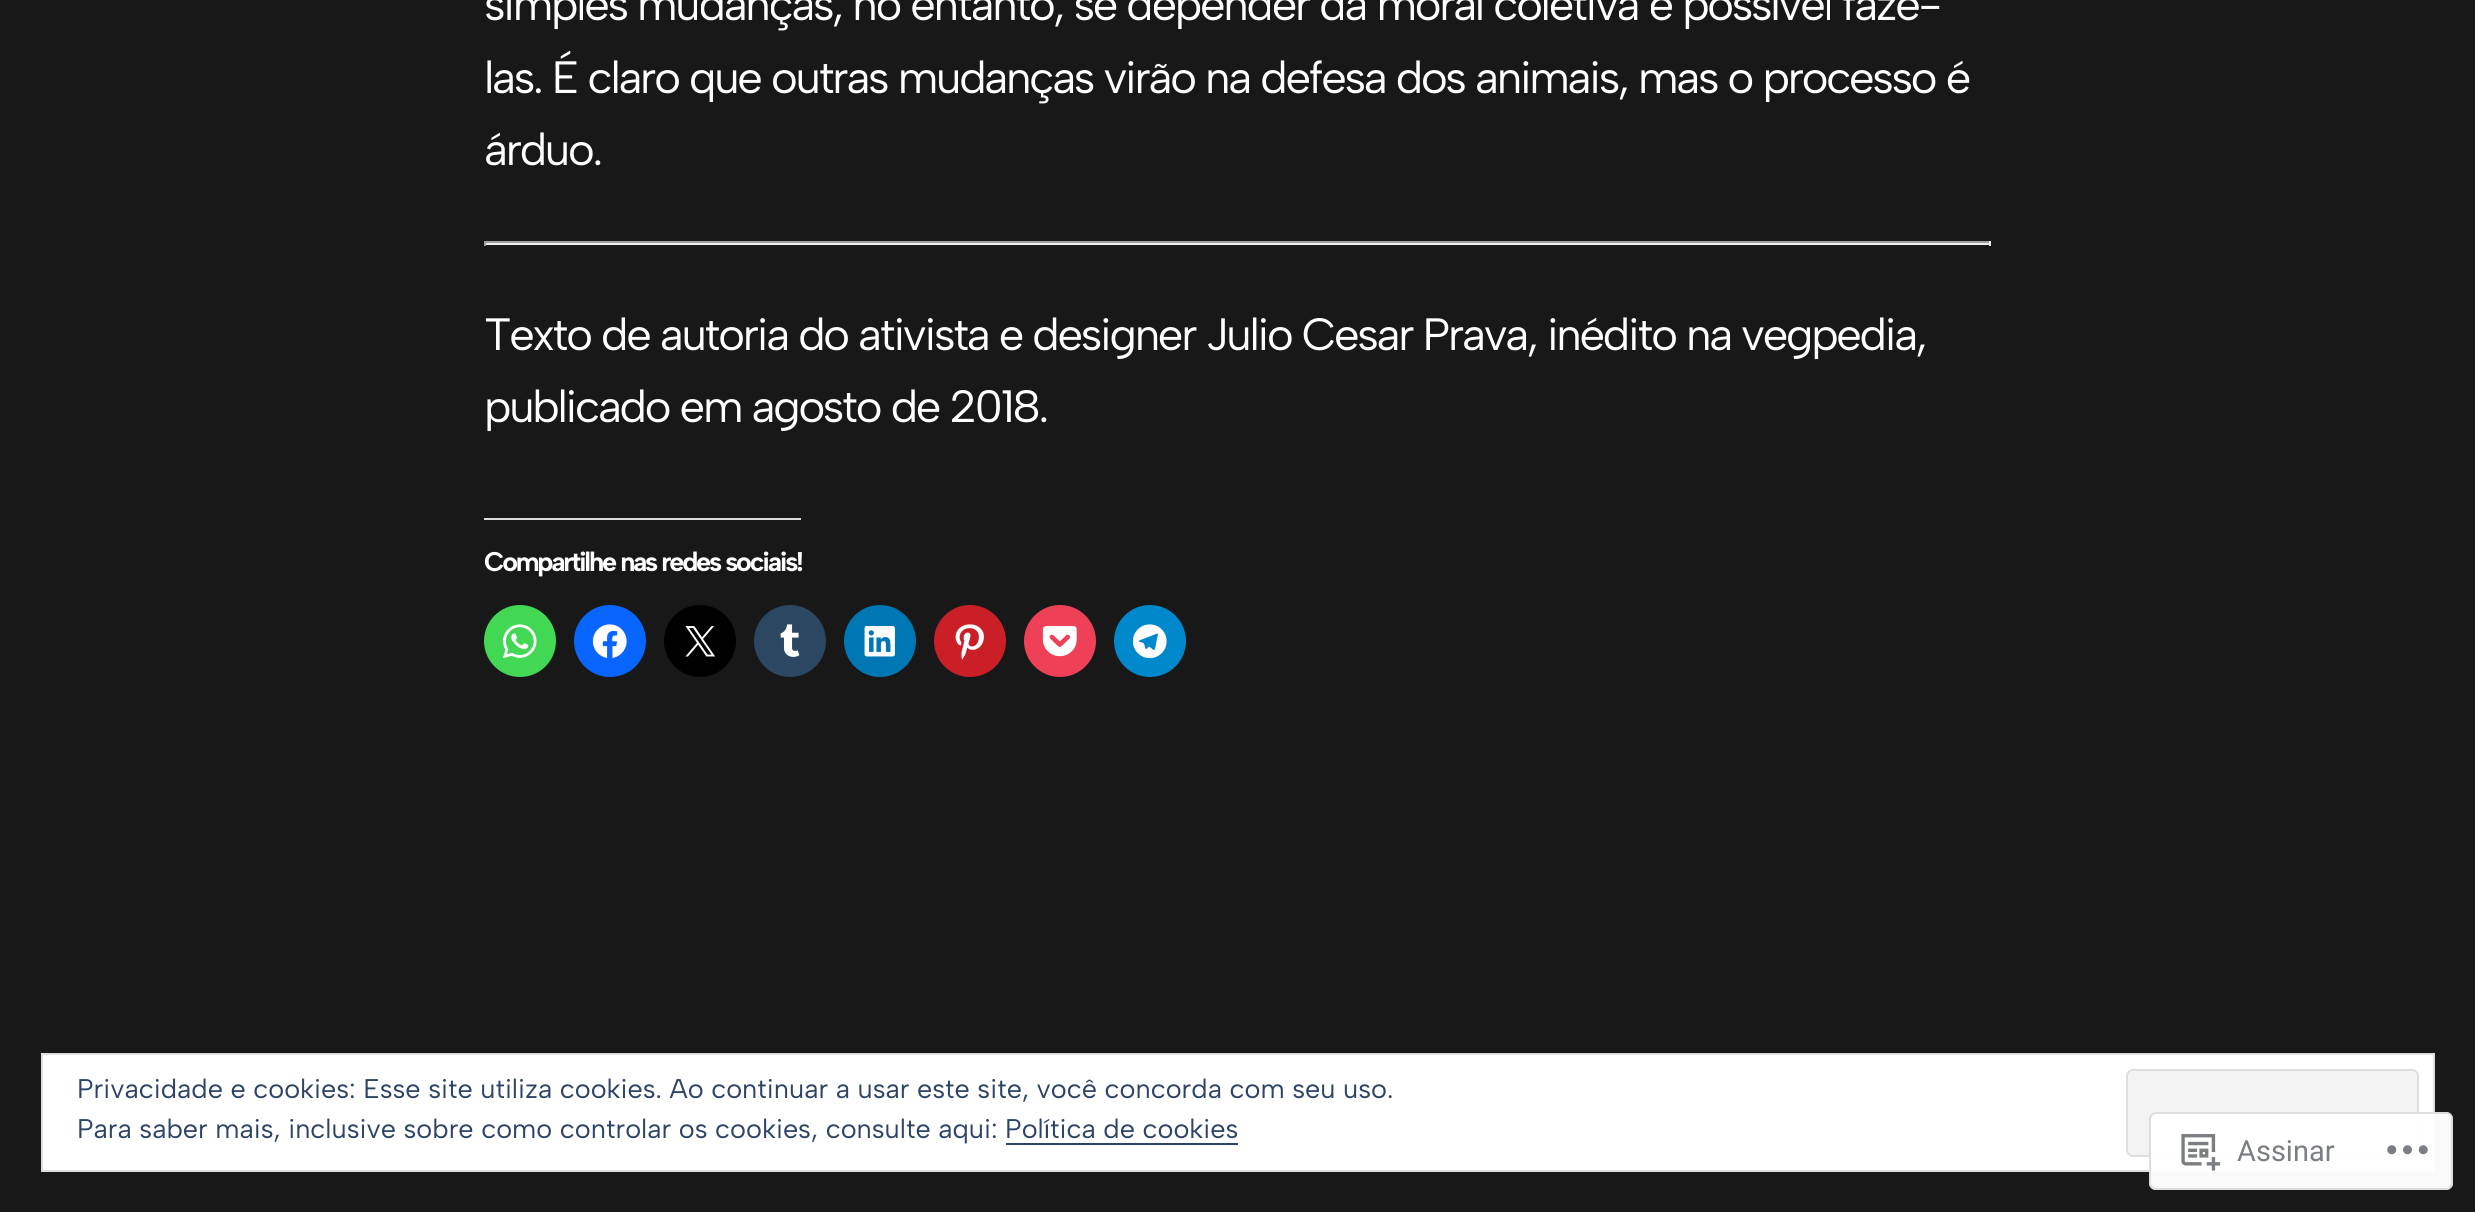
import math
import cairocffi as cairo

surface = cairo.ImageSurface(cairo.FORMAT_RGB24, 2475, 1212)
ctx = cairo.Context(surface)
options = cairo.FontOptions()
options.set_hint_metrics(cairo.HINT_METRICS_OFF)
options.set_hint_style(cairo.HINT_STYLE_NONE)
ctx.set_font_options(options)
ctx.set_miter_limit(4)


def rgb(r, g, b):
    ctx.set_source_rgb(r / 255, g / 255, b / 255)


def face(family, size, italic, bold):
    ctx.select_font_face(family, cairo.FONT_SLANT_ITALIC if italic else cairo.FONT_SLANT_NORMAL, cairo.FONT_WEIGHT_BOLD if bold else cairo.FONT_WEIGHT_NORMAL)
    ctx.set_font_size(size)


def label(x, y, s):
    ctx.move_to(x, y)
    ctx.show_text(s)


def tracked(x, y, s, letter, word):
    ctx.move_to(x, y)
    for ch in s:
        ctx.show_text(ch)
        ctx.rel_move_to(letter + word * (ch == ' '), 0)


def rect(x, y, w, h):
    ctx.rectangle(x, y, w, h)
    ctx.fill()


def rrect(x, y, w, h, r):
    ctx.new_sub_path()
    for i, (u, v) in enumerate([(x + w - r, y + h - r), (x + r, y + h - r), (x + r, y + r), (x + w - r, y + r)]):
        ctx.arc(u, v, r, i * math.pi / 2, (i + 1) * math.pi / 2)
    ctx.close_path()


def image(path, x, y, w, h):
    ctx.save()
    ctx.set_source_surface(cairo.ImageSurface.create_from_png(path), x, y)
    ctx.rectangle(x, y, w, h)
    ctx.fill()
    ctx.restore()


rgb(24, 24, 24)
ctx.paint()
face('Albert Sans', 45.25, 0, 0)
rgb(255, 255, 255)
tracked(484, 20, 'simples mudanças, no entanto, se depender da moral coletiva é possível fazê-', -2.25, -0.1)
tracked(484, 93, 'las. É claro que outras mudanças virão na defesa dos animais, mas o processo é', -2.25, 0)
tracked(484, 165, 'árduo.', -2.25, 0)
rgb(159, 159, 159)
rect(484, 241, 1507, 2)
rgb(238, 238, 238)
rect(1989, 241, 2, 5)
rect(484, 243, 1507, 2)
rgb(159, 159, 159)
rect(484, 241, 2, 5)
rgb(255, 255, 255)
tracked(484, 350, 'Texto de autoria do ativista e designer Julio Cesar Prava, inédito na vegpedia,', -2.25, -0.1)
tracked(484, 422, 'publicado em agosto de 2018.', -2.25, 0)
rgb(220, 220, 222)
rect(484, 518, 317, 2)
face('Albert Sans', 27, 0, 1)
rgb(255, 255, 255)
tracked(484, 571, 'Compartilhe nas redes sociais!', -2.25, 0)
rgb(67, 216, 84)
ctx.new_path()
ctx.arc(520, 641, 36, 0, 2 * math.pi)
ctx.fill()
image('image0.png', 503, 624, 34, 34)
rgb(8, 102, 255)
ctx.arc(610, 641, 36, 0, 2 * math.pi)
ctx.fill()
image('image1.png', 592, 624, 35, 34)
rgb(0, 0, 0)
ctx.arc(700, 641, 36, 0, 2 * math.pi)
ctx.fill()
image('image2.png', 685, 626, 30, 31)
rgb(44, 71, 98)
ctx.arc(790, 641, 36, 0, 2 * math.pi)
ctx.fill()
image('image3.png', 780, 624, 20, 33)
rgb(0, 119, 181)
ctx.arc(880, 641, 36, 0, 2 * math.pi)
ctx.fill()
image('image4.png', 864, 626, 31, 31)
rgb(202, 31, 39)
ctx.arc(970, 641, 36, 0, 2 * math.pi)
ctx.fill()
image('image5.png', 955, 624, 29, 36)
rgb(238, 64, 86)
ctx.arc(1060, 641, 36, 0, 2 * math.pi)
ctx.fill()
image('image6.png', 1042, 626, 35, 31)
rgb(0, 136, 204)
ctx.arc(1150, 641, 36, 0, 2 * math.pi)
ctx.fill()
image('image7.png', 1132, 624, 35, 35)
rgb(255, 255, 255)
ctx.rectangle(42, 1054, 2392, 117)
ctx.fill_preserve()
rgb(222, 222, 222)
ctx.stroke()
face('Albert Sans', 27, 0, 0)
rgb(46, 68, 103)
label(77, 1098, 'Privacidade e cookies: Esse site utiliza cookies. Ao continuar a usar este site, você concorda com seu uso.')
rgb(243, 243, 243)
rrect(2127, 1070, 291, 86, 6)
ctx.fill_preserve()
rgb(222, 222, 222)
ctx.stroke()
rgb(46, 68, 103)
label(77, 1138, 'Para saber mais, inclusive sobre como controlar os cookies, consulte aqui: Política de cookies')
rect(1006, 1143, 232, 2)
ctx.set_source_rgba(1, 1, 1, 0.98)
rrect(2149, 1112, 304, 78, 7)
ctx.fill()
rrect(2150, 1113, 302, 76, 6)
ctx.set_source_rgba(0.863, 0.863, 0.871, 0.98)
ctx.stroke()
image('image8.png', 2181, 1134, 40, 37)
face('Roboto', 29, 0, 0)
rgb(123, 127, 132)
label(2237, 1161, 'Assinar')
image('image9.png', 2387, 1145, 41, 10)
surface.write_to_png('render.png')
